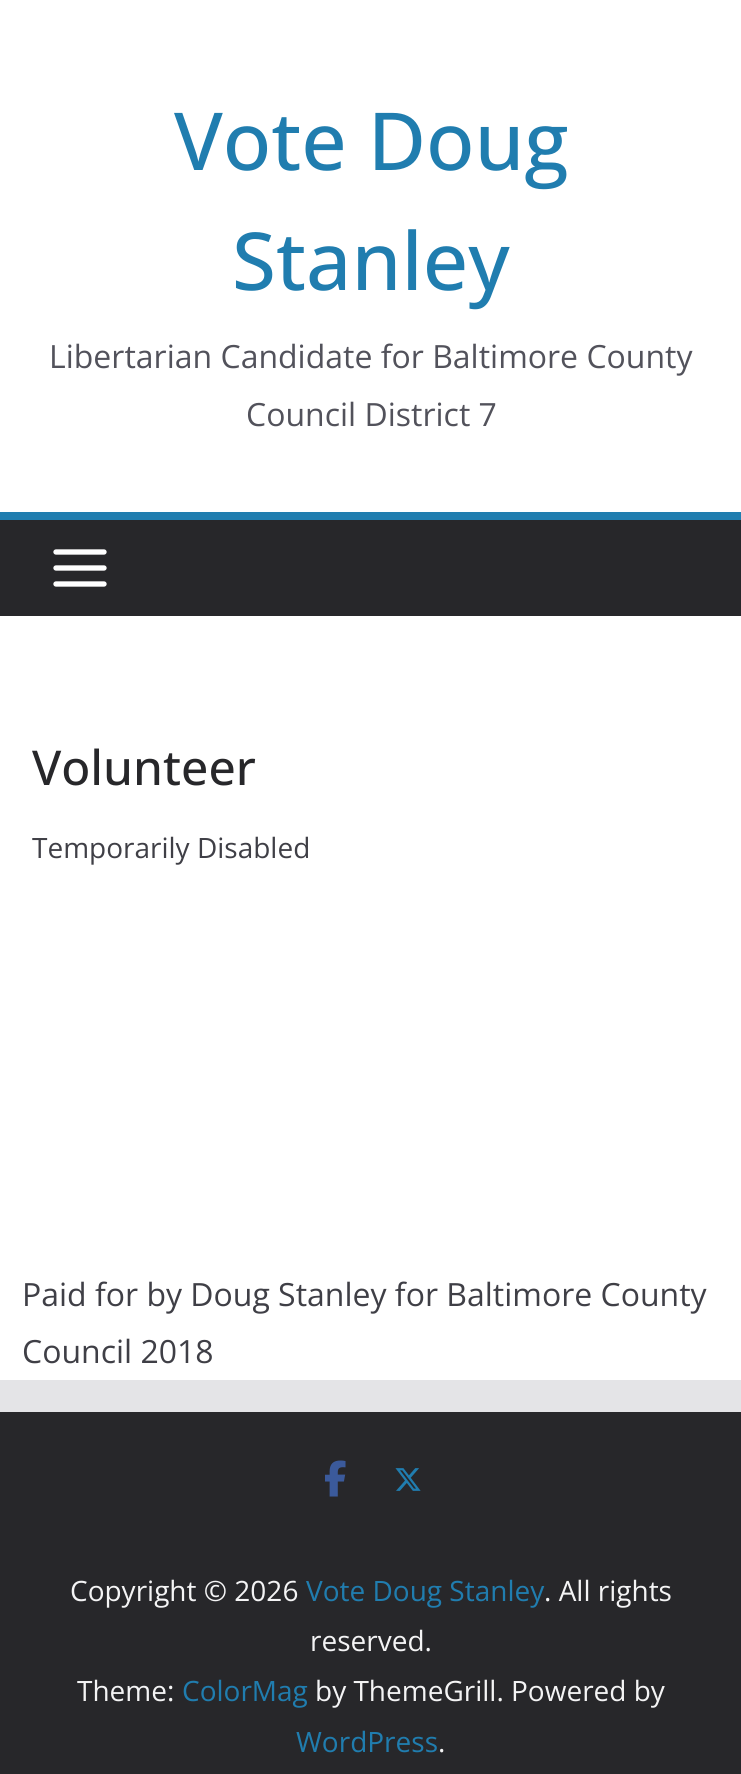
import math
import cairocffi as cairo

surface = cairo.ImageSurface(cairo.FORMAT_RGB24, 741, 1774)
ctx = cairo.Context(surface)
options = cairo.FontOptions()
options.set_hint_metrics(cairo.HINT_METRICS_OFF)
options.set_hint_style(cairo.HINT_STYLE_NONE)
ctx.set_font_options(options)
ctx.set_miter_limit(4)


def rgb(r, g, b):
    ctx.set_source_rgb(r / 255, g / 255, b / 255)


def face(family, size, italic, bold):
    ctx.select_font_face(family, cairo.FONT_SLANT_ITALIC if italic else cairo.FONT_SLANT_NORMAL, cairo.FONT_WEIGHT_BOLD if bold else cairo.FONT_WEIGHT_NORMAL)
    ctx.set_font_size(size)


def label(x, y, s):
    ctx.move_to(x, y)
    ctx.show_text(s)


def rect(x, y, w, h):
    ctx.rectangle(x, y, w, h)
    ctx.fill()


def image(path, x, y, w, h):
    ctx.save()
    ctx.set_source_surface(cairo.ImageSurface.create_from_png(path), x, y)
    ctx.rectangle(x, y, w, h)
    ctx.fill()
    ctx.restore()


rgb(228, 228, 231)
ctx.paint()
rgb(255, 255, 255)
rect(0, 0, 741, 512)
face('Open Sans Medium', 80, 0, 0)
rgb(32, 125, 175)
label(174, 170, 'Vote Doug')
label(232, 290, 'Stanley')
face('Open Sans', 32, 0, 0)
rgb(82, 82, 91)
label(49, 368, 'Libertarian Candidate for Baltimore County')
label(246, 426, 'Council District 7')
rgb(39, 39, 42)
rect(0, 520, 741, 96)
rgb(32, 125, 175)
rect(0, 512, 741, 8)
image('image0.png', 53, 549, 54, 38)
rgb(255, 255, 255)
rect(0, 616, 741, 764)
face('Open Sans Medium', 48, 0, 0)
rgb(39, 39, 42)
label(32, 785, 'Volunteer')
face('Open Sans', 28, 0, 0)
rgb(63, 63, 70)
label(32, 858, 'Temporarily Disabled')
face('Open Sans', 32, 0, 0)
label(22, 1306, 'Paid for by Doug Stanley for Baltimore County')
label(22, 1363, 'Council 2018')
rgb(39, 39, 42)
rect(0, 1412, 741, 362)
image('image1.png', 325, 1460, 21, 37)
image('image2.png', 395, 1468, 26, 23)
face('Open Sans', 28, 0, 0)
rgb(244, 244, 245)
label(70, 1601, 'Copyright © 2026')
rgb(32, 125, 175)
label(306, 1601, 'Vote Doug Stanley')
rgb(244, 244, 245)
label(544, 1601, '. All rights')
label(310, 1651, 'reserved.')
label(77, 1701, 'Theme:')
rgb(32, 125, 175)
label(182, 1701, 'ColorMag')
rgb(244, 244, 245)
label(315, 1701, 'by ThemeGrill. Powered by')
rgb(32, 125, 175)
label(296, 1752, 'WordPress')
rgb(244, 244, 245)
label(438, 1752, '.')
surface.write_to_png('render.png')
